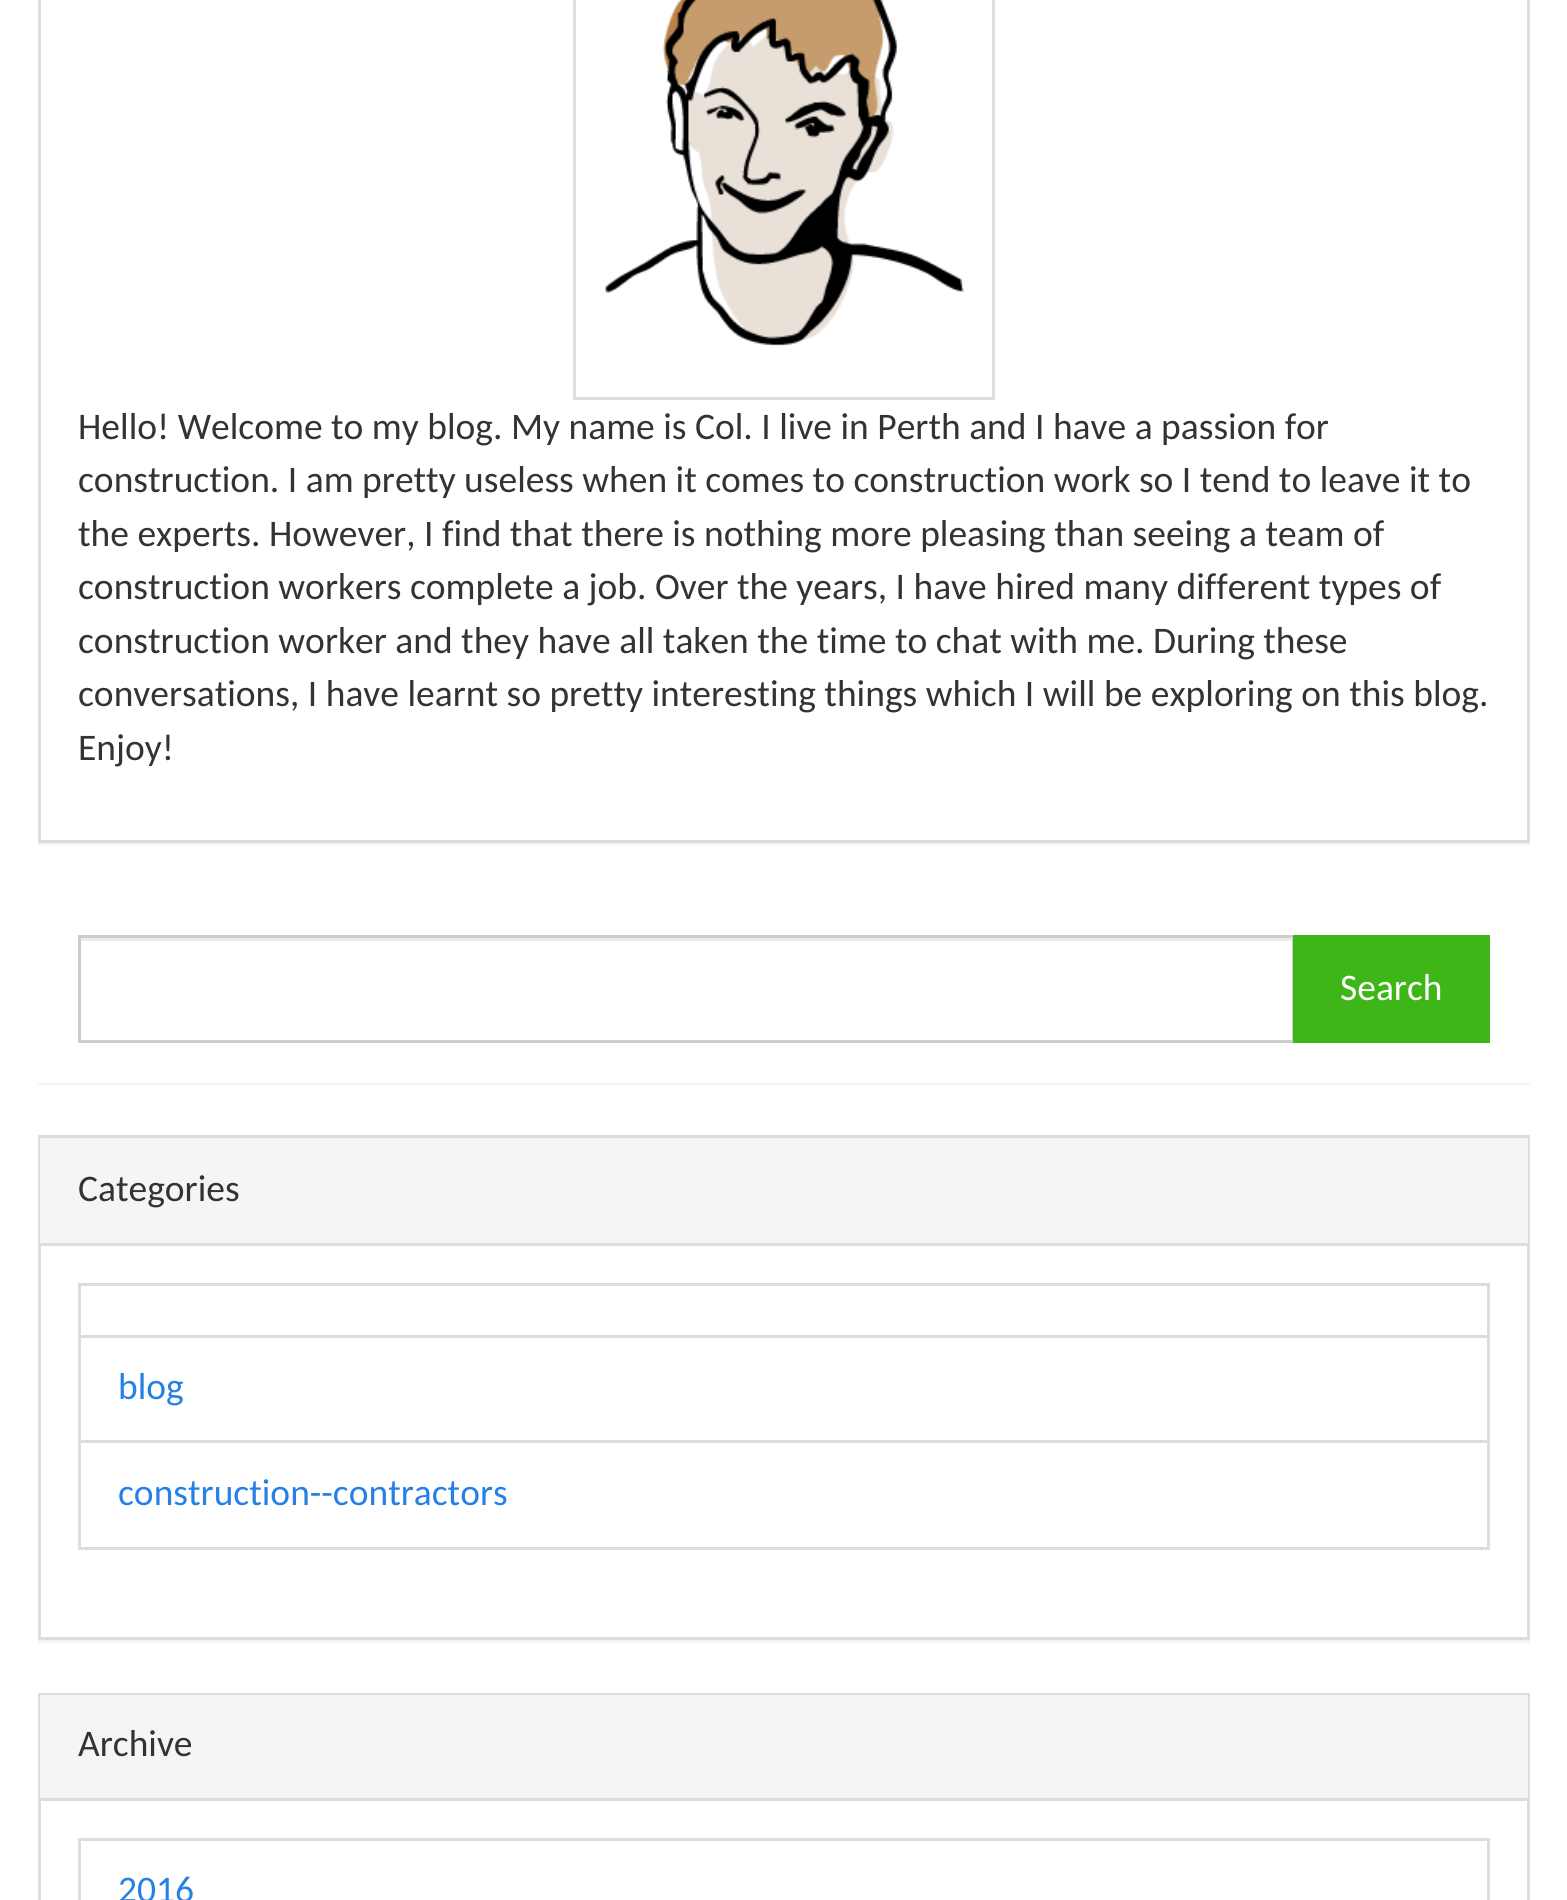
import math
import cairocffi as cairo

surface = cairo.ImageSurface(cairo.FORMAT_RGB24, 1567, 1900)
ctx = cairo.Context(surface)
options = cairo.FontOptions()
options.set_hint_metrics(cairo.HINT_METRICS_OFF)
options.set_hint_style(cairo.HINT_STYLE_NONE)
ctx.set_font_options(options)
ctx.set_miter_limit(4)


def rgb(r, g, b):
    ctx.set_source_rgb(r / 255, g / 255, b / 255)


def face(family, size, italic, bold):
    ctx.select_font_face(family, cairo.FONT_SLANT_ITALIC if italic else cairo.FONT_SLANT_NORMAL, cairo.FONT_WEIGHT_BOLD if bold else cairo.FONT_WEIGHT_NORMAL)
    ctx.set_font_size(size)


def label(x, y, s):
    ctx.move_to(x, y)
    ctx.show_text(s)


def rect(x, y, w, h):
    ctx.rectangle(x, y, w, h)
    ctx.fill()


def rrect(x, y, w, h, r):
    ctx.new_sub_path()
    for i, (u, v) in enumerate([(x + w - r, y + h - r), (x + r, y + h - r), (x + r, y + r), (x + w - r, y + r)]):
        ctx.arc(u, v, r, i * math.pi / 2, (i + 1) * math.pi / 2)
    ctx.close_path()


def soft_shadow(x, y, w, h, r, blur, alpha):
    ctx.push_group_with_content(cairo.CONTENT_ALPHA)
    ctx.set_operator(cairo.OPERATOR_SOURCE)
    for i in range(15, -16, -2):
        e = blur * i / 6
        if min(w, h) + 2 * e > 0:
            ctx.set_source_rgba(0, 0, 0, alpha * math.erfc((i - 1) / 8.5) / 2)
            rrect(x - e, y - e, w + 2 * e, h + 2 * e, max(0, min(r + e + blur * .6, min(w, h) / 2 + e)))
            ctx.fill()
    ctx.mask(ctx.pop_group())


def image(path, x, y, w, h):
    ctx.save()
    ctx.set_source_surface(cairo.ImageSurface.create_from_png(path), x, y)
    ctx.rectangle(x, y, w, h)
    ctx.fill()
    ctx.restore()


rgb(255, 255, 255)
ctx.paint()
rgb(0, 0, 0)
soft_shadow(38, -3, 1492, 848, 0, 1, 0.05)
rgb(255, 255, 255)
ctx.rectangle(39.5, -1.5, 1489, 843)
ctx.fill_preserve()
rgb(221, 221, 221)
ctx.set_line_width(3)
ctx.stroke()
ctx.rectangle(574.5, -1.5, 419, 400)
ctx.stroke()
image('image0.png', 605, 0, 359, 346)
face('Carlito', 37.5, 0, 0)
rgb(51, 51, 51)
label(78, 439, 'Hello! Welcome to my blog. My name is Col. I live in Perth and I have a passion for')
label(78, 492, 'construction. I am pretty useless when it comes to construction work so I tend to leave it to')
label(78, 546, 'the experts. However, I find that there is nothing more pleasing than seeing a team of')
label(78, 599, 'construction workers complete a job. Over the years, I have hired many different types of')
label(78, 653, 'construction worker and they have all taken the time to chat with me. During these')
label(78, 706, 'conversations, I have learnt so pretty interesting things which I will be exploring on this blog.')
label(78, 760, 'Enjoy!')
rgb(0, 0, 0)
soft_shadow(38, 898, 1492, 187, 0, 1, 0.05)
rgb(255, 255, 255)
rect(38, 897, 1492, 186)
rgb(236, 236, 236)
rect(80, 938, 1213, 3)
ctx.rectangle(79.5, 936.5, 1214, 105)
rgb(204, 204, 204)
ctx.stroke()
rgb(63, 182, 24)
rect(1293, 935, 197, 108)
rgb(255, 255, 255)
label(1340, 1000, 'Search')
ctx.save()
ctx.rectangle(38, 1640, 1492, 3)
ctx.clip()
rgb(0, 0, 0)
soft_shadow(38, 1138, 1492, 505, 0, 1, 0.05)
ctx.restore()
ctx.rectangle(39.5, 1136.5, 1489, 502)
rgb(221, 221, 221)
ctx.stroke()
rgb(245, 245, 245)
rect(40, 1138, 1488, 105)
rgb(221, 221, 221)
rect(40, 1243, 1488, 3)
rgb(51, 51, 51)
label(78, 1201, 'Categories')
ctx.rectangle(79.5, 1284.5, 1409, 52)
rgb(221, 221, 221)
ctx.stroke()
ctx.rectangle(79.5, 1336.5, 1409, 105)
ctx.stroke()
rgb(39, 128, 227)
label(118, 1399, 'blog')
ctx.rectangle(79.5, 1441.5, 1409, 107)
rgb(221, 221, 221)
ctx.stroke()
rgb(39, 128, 227)
label(118, 1505, 'construction--contractors')
ctx.rectangle(39.5, 1694.5, 1489, 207)
rgb(221, 221, 221)
ctx.stroke()
rgb(245, 245, 245)
rect(40, 1695, 1488, 103)
rgb(221, 221, 221)
rect(40, 1798, 1488, 3)
rgb(51, 51, 51)
label(78, 1756, 'Archive')
ctx.rectangle(79.5, 1839.5, 1409, 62)
rgb(221, 221, 221)
ctx.stroke()
rgb(39, 128, 227)
label(118, 1902, '2016')
surface.write_to_png('render.png')
